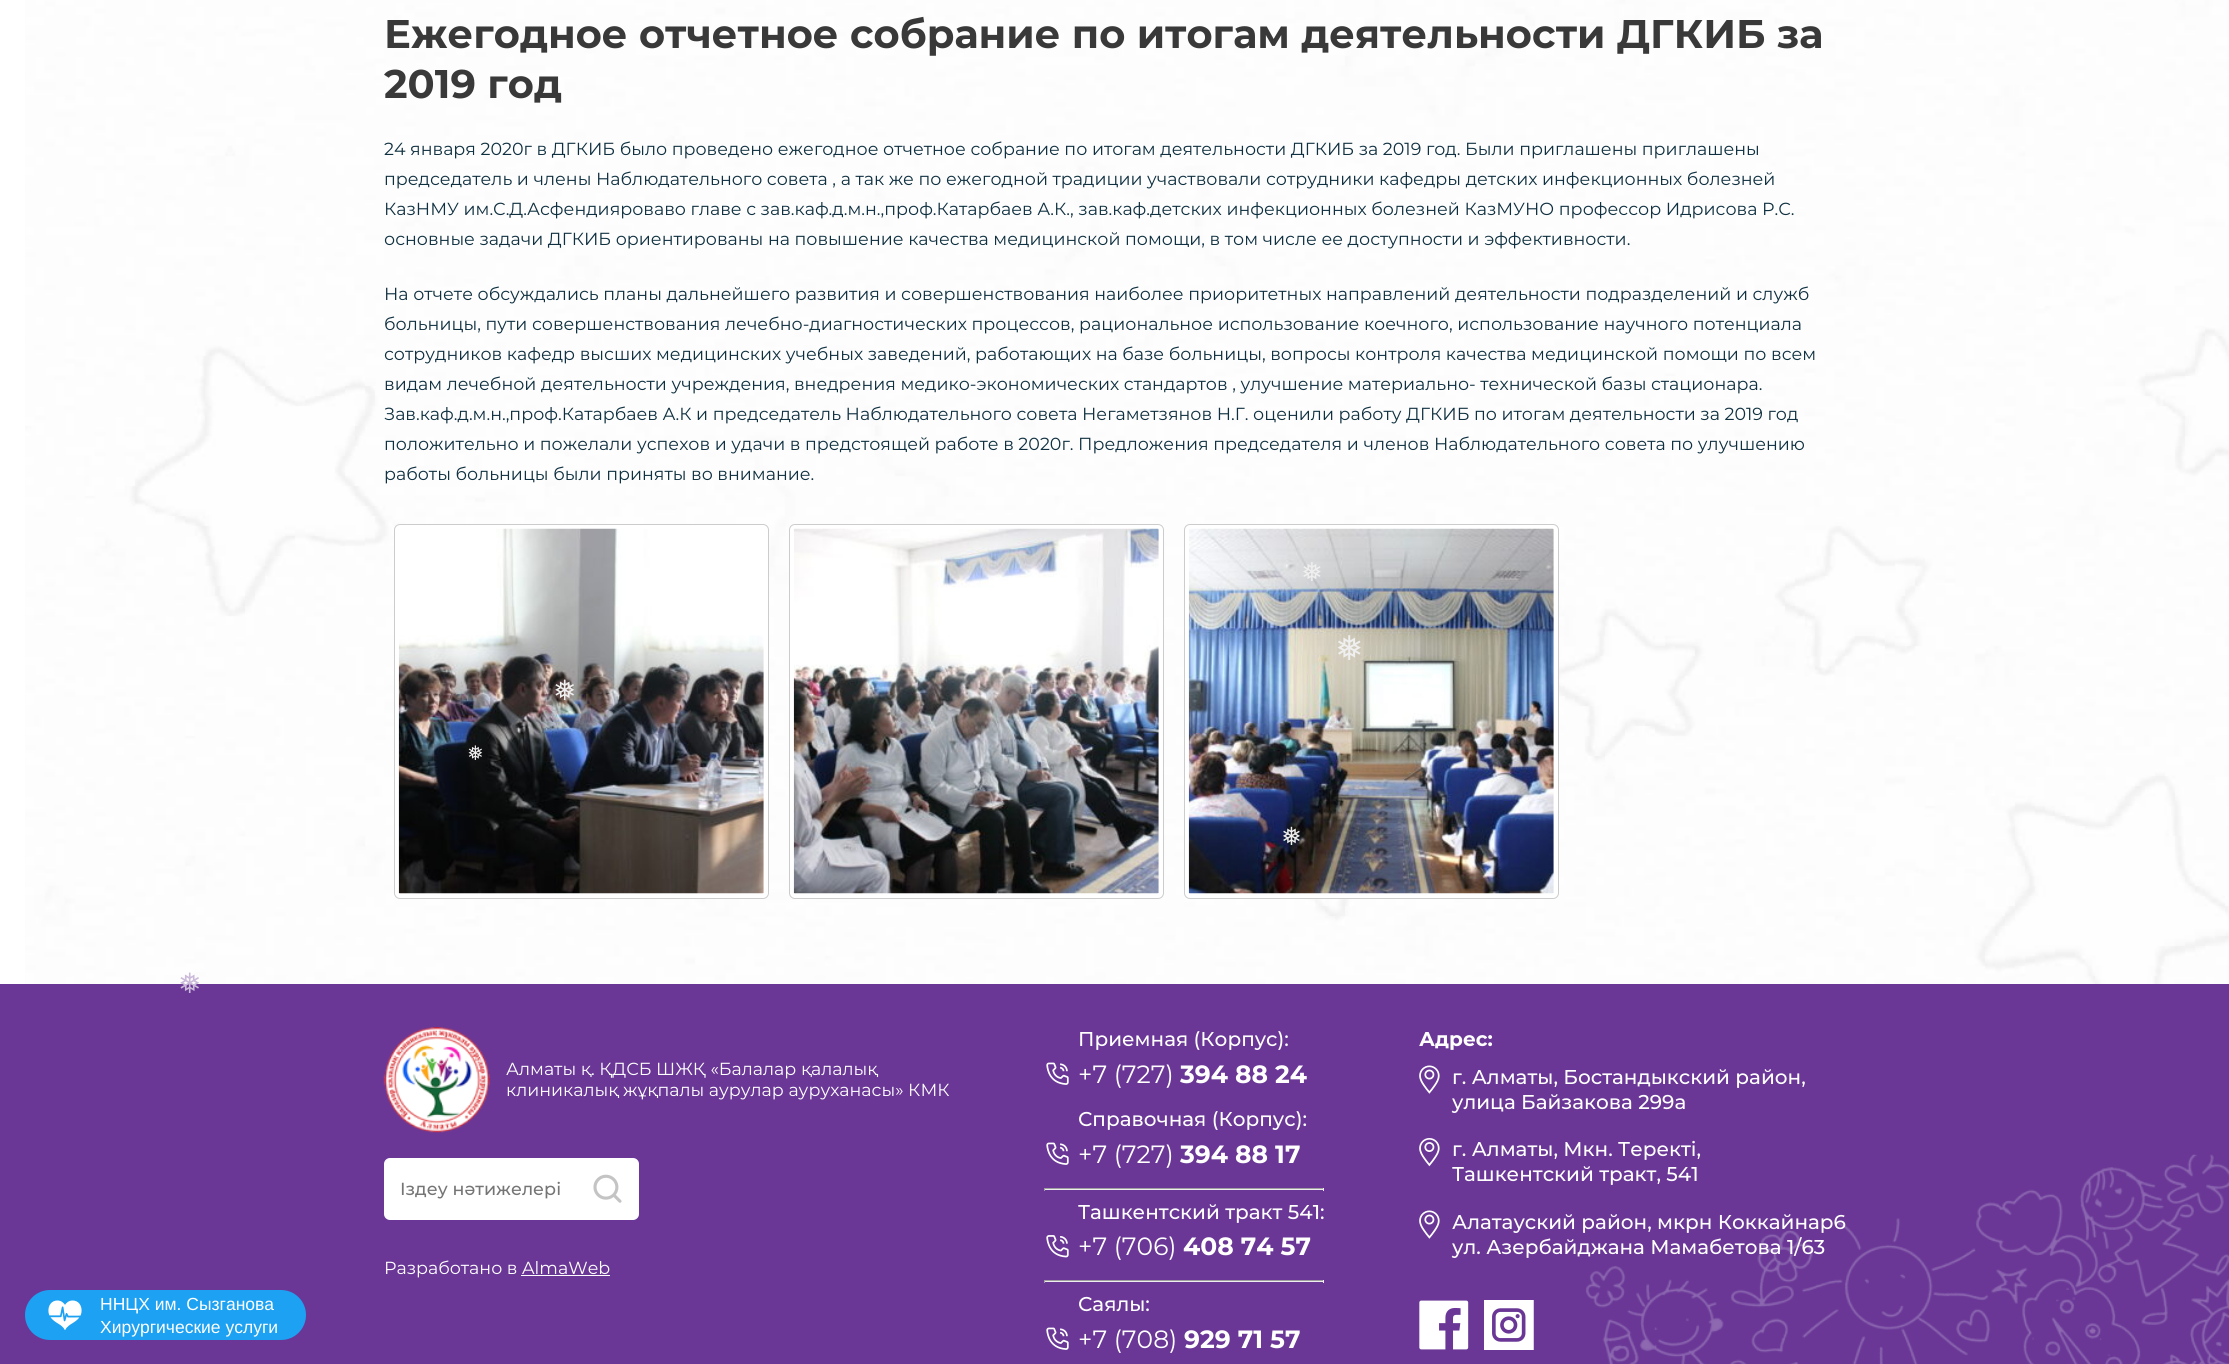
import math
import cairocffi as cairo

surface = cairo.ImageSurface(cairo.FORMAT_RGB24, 2229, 1364)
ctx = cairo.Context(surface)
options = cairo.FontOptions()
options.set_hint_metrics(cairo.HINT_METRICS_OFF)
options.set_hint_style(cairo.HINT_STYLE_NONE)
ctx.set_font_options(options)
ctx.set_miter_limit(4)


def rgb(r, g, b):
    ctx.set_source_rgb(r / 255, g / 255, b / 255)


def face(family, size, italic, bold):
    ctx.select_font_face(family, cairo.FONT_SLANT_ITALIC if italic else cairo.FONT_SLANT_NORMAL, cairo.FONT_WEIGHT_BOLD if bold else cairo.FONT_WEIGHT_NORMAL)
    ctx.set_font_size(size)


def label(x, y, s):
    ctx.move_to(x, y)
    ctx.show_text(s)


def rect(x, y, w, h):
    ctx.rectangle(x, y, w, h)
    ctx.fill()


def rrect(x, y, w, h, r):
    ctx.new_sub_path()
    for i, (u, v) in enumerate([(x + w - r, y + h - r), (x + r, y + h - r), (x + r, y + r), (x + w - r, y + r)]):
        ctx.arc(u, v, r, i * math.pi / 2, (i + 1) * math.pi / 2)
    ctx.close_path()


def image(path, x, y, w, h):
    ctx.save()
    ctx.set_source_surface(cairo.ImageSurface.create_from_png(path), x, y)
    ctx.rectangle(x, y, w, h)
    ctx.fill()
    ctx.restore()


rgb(255, 255, 255)
ctx.paint()
image('image0.png', 25, 0, 2204, 984)
face('Montserrat', 40, 0, 1)
rgb(57, 57, 57)
label(384, 48, 'Ежегодное отчетное собрание по итогам деятельности ДГКИБ за')
label(384, 98, '2019 год')
face('Montserrat', 17.5, 0, 0)
rgb(15, 48, 64)
label(384, 155, '24 января 2020г в ДГКИБ было проведено ежегодное отчетное собрание по итогам деятельности ДГКИБ за 2019 год. Были приглашены приглашены')
label(384, 185, 'председатель и члены Наблюдательного совета , а так же по ежегодной традиции участвовали сотрудники кафедры детских инфекционных болезней')
label(384, 215, 'КазНМУ им.С.Д.Асфендияроваво главе с зав.каф.д.м.н.,проф.Катарбаев А.К., зав.каф.детских инфекционных болезней КазМУНО профессор Идрисова Р.С.')
label(384, 245, 'основные задачи ДГКИБ ориентированы на повышение качества медицинской помощи, в том числе ее доступности и эффективности.')
label(384, 300, 'На отчете обсуждались планы дальнейшего развития и совершенствования наиболее приоритетных направлений деятельности подразделений и служб')
label(384, 330, 'больницы, пути совершенствования лечебно-диагностических процессов, рациональное использование коечного, использование научного потенциала')
label(384, 360, 'сотрудников кафедр высших медицинских учебных заведений, работающих на базе больницы, вопросы контроля качества медицинской помощи по всем')
label(384, 390, 'видам лечебной деятельности учреждения, внедрения медико-экономических стандартов , улучшение материально- технической базы стационара.')
label(384, 420, 'Зав.каф.д.м.н.,проф.Катарбаев А.К и председатель Наблюдательного совета Негаметзянов Н.Г. оценили работу ДГКИБ по итогам деятельности за 2019 год')
label(384, 450, 'положительно и пожелали успехов и удачи в предстоящей работе в 2020г. Предложения председателя и членов Наблюдательного совета по улучшению')
label(384, 480, 'работы больницы были приняты во внимание.')
rgb(255, 255, 255)
rrect(394.5, 524.5, 374, 374, 5.5)
ctx.fill_preserve()
rgb(204, 204, 204)
ctx.set_line_width(1)
ctx.stroke()
image('image1.png', 398, 528, 366, 366)
rgb(255, 255, 255)
rrect(789.5, 524.5, 374, 374, 5.5)
ctx.fill_preserve()
rgb(204, 204, 204)
ctx.stroke()
image('image2.png', 793, 528, 366, 366)
rgb(255, 255, 255)
rrect(1184.5, 524.5, 374, 374, 5.5)
ctx.fill_preserve()
rgb(204, 204, 204)
ctx.stroke()
image('image3.png', 1188, 528, 366, 366)
face('DejaVu Sans', 26, 0, 0)
rgb(239, 239, 239)
label(1301, 581, '❅')
face('DejaVu Sans', 34, 0, 0)
label(1335, 660, '❅')
face('DejaVu Sans', 28, 0, 0)
label(553, 700, '❅')
face('DejaVu Sans', 20, 0, 0)
label(467, 760, '❅')
face('DejaVu Sans', 25, 0, 0)
label(1281, 845, '❅')
rgb(106, 55, 150)
rect(0, 984, 2229, 380)
face('DejaVu Sans', 28, 0, 0)
rgb(203, 186, 217)
label(178, 993, '❅')
rgb(29, 161, 242)
rrect(25, 1290, 281, 50, 25)
ctx.fill()
image('image4.png', 48, 1300, 34, 30)
face('Liberation Sans', 17.5, 0, 0)
rgb(255, 255, 255)
label(100, 1310, 'ННЦХ им. Сызганова')
label(100, 1333, 'Хирургические услуги')
image('image5.png', 1585, 1154, 644, 210)
image('image6.png', 383, 1027, 107, 106)
face('Montserrat', 17.5, 0, 0)
label(506, 1075, 'Алматы қ. ҚДСБ ШЖҚ «Балалар қалалық')
label(506, 1096, 'клиникалық жұқпалы аурулар ауруханасы» КМК')
rrect(384, 1158, 255, 62, 6)
ctx.fill()
face('Montserrat Medium', 17.5, 0, 0)
rgb(117, 117, 117)
label(400, 1195, 'Іздеу нәтижелері')
image('image7.png', 593, 1174, 29, 29)
face('Montserrat', 17.5, 0, 0)
rgb(255, 255, 255)
label(384, 1274, 'Разработано в AlmaWeb')
rect(521, 1275, 89, 1)
face('Montserrat Medium', 20, 0, 0)
label(1078, 1046, 'Приемная (Корпус):')
image('image8.png', 1046, 1062, 23, 23)
face('Montserrat', 25, 0, 0)
label(1078, 1083, '+7 (727)')
face('Montserrat', 25, 0, 1)
label(1180, 1083, '394 88 24')
face('Montserrat Medium', 20, 0, 0)
label(1078, 1126, 'Справочная (Корпус):')
image('image8.png', 1046, 1142, 23, 23)
face('Montserrat', 25, 0, 0)
label(1078, 1163, '+7 (727)')
face('Montserrat', 25, 0, 1)
label(1180, 1163, '394 88 17')
rgb(159, 159, 159)
rect(1044, 1188, 280, 1)
rgb(238, 238, 238)
rect(1323, 1188, 1, 3)
rect(1044, 1189, 280, 1)
rgb(159, 159, 159)
rect(1044, 1188, 1, 3)
face('Montserrat Medium', 20, 0, 0)
rgb(255, 255, 255)
label(1078, 1219, 'Ташкентский тракт 541:')
image('image9.png', 1046, 1235, 23, 23)
face('Montserrat', 25, 0, 0)
label(1078, 1255, '+7 (706)')
face('Montserrat', 25, 0, 1)
label(1183, 1255, '408 74 57')
rgb(159, 159, 159)
rect(1044, 1280, 280, 1)
rgb(238, 238, 238)
rect(1323, 1280, 1, 3)
rect(1044, 1281, 280, 1)
rgb(159, 159, 159)
rect(1044, 1280, 1, 3)
face('Montserrat Medium', 20, 0, 0)
rgb(255, 255, 255)
label(1078, 1311, 'Саялы:')
image('image8.png', 1046, 1327, 23, 23)
face('Montserrat', 25, 0, 0)
label(1078, 1348, '+7 (708)')
face('Montserrat', 25, 0, 1)
label(1184, 1348, '929 71 57')
face('Montserrat', 20, 0, 1)
label(1419, 1046, 'Адрес:')
image('image10.png', 1419, 1065, 21, 29)
face('Montserrat Medium', 20, 0, 0)
label(1452, 1084, 'г. Алматы, Бостандыкский район,')
label(1452, 1109, 'улица Байзакова 299а')
image('image11.png', 1419, 1138, 21, 29)
label(1452, 1156, 'г. Алматы, Мкн. Теректі,')
label(1452, 1181, 'Ташкентский тракт, 541')
image('image10.png', 1419, 1210, 21, 29)
label(1452, 1229, 'Алатауский район, мкрн Коккайнар6')
label(1452, 1254, 'ул. Азербайджана Мамабетова 1/63')
image('image12.png', 1419, 1300, 50, 50)
image('image13.png', 1484, 1300, 50, 50)
surface.write_to_png('render.png')
